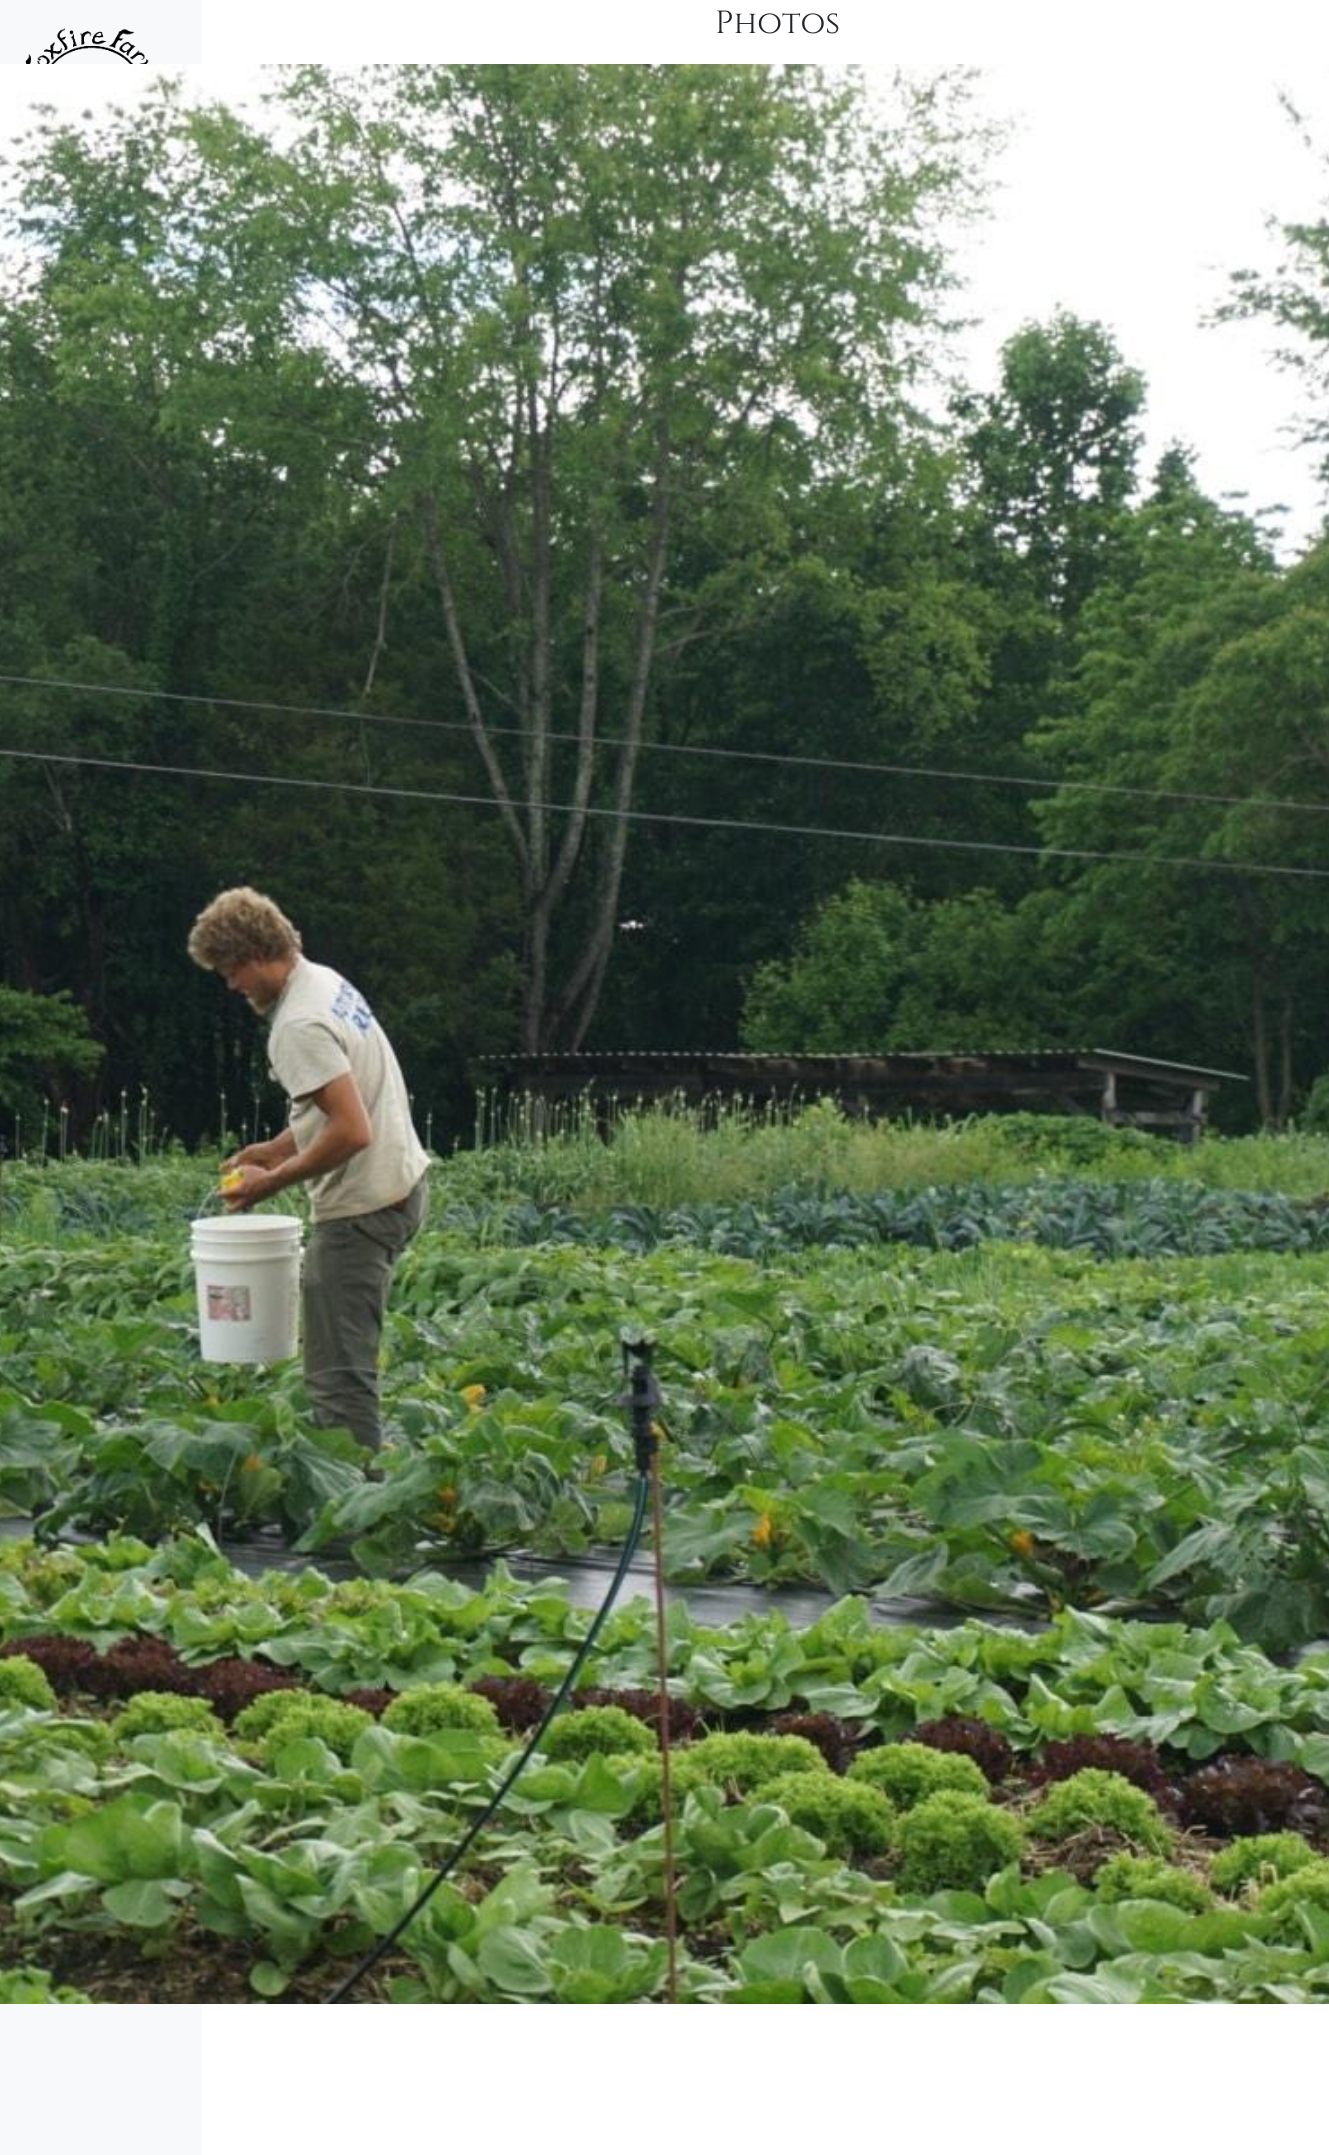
import math
import cairocffi as cairo

surface = cairo.ImageSurface(cairo.FORMAT_RGB24, 1329, 2155)
ctx = cairo.Context(surface)
options = cairo.FontOptions()
options.set_hint_metrics(cairo.HINT_METRICS_OFF)
options.set_hint_style(cairo.HINT_STYLE_NONE)
ctx.set_font_options(options)
ctx.set_miter_limit(4)


def rgb(r, g, b):
    ctx.set_source_rgb(r / 255, g / 255, b / 255)


def face(family, size, italic, bold):
    ctx.select_font_face(family, cairo.FONT_SLANT_ITALIC if italic else cairo.FONT_SLANT_NORMAL, cairo.FONT_WEIGHT_BOLD if bold else cairo.FONT_WEIGHT_NORMAL)
    ctx.set_font_size(size)


def label(x, y, s):
    ctx.move_to(x, y)
    ctx.show_text(s)


def rect(x, y, w, h):
    ctx.rectangle(x, y, w, h)
    ctx.fill()


def image(path, x, y, w, h):
    ctx.save()
    ctx.set_source_surface(cairo.ImageSurface.create_from_png(path), x, y)
    ctx.rectangle(x, y, w, h)
    ctx.fill()
    ctx.restore()


rgb(255, 255, 255)
ctx.paint()
rgb(248, 249, 250)
rect(0, 0, 202, 2155)
image('image0.png', 25, 28, 124, 36)
face('Cinzel', 32, 0, 0)
rgb(33, 37, 41)
label(715, 33, 'Photos')
image('image1.png', 0, 64, 1329, 1940)
surface.write_to_png('render.png')
